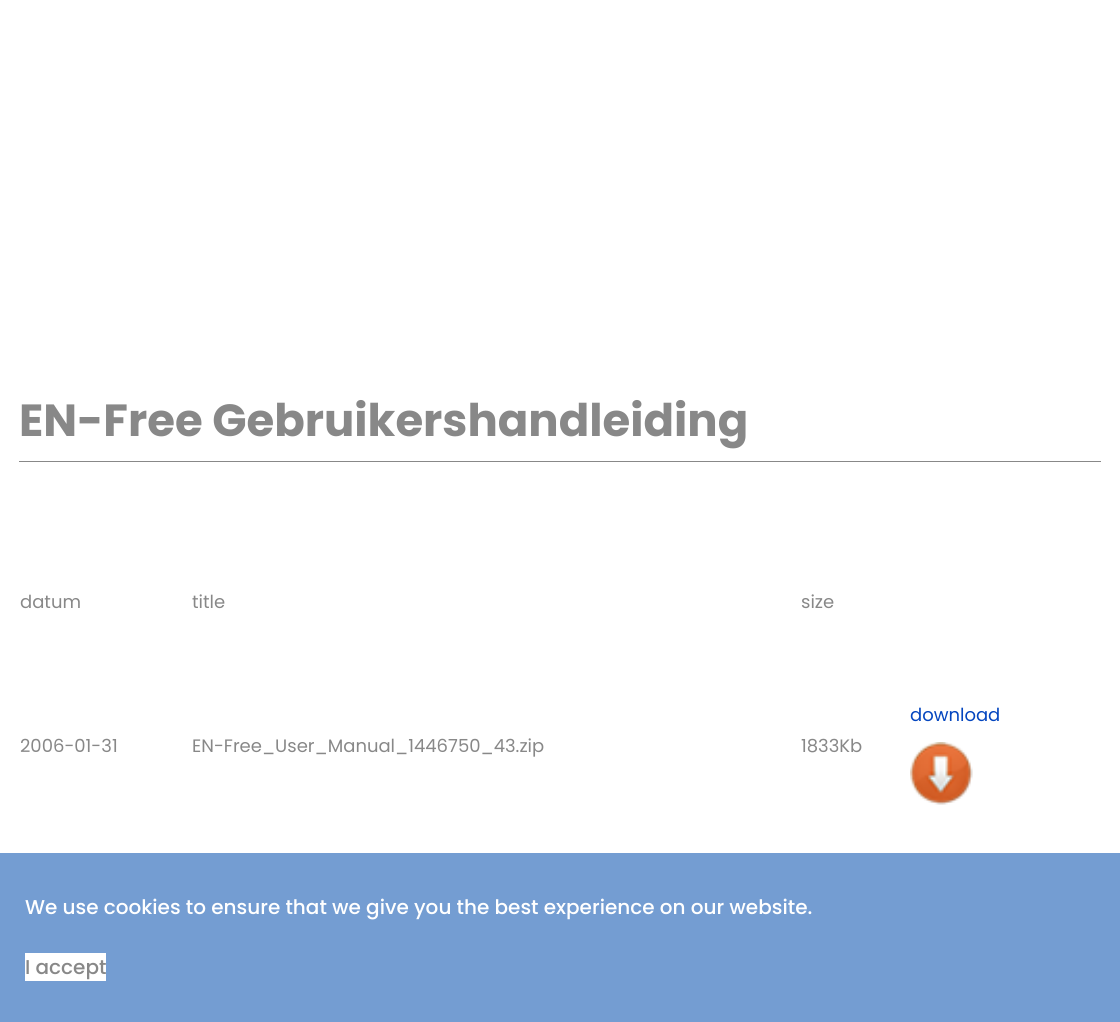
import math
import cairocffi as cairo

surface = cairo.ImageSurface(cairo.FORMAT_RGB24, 1120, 1022)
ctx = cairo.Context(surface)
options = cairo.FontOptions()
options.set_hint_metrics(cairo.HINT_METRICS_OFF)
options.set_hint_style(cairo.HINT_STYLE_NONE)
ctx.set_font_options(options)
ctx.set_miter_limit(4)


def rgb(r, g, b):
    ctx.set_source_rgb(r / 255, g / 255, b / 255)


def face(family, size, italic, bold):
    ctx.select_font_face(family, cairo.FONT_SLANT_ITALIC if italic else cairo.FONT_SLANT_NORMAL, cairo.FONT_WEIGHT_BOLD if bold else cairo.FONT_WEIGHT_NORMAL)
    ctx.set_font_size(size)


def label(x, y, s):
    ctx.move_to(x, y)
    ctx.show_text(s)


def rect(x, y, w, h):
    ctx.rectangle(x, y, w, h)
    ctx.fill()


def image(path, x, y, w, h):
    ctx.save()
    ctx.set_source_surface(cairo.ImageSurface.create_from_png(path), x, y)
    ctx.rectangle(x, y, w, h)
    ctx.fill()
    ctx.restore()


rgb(255, 255, 255)
ctx.paint()
rgb(136, 136, 136)
rect(19, 461, 1082, 1)
face('Poppins', 45, 0, 1)
label(19, 436, 'EN-Free Gebruikershandleiding')
face('Poppins', 18, 0, 0)
label(20, 608, 'datum')
label(192, 608, 'title')
label(801, 608, 'size')
rgb(3, 69, 191)
label(910, 721, 'download')
image('image0.png', 910, 742, 63, 63)
rgb(136, 136, 136)
label(20, 752, '2006-01-31')
label(192, 752, 'EN-Free_User_Manual_1446750_43.zip')
label(801, 752, '1833Kb')
rgb(116, 157, 210)
rect(0, 853, 1120, 169)
face('Poppins Medium', 20, 0, 0)
rgb(255, 255, 255)
label(25, 914, 'We use cookies to ensure that we give you the best experience on our website.')
rect(25, 953, 81, 28)
rgb(136, 136, 136)
label(25, 974, 'I accept')
surface.write_to_png('render.png')
